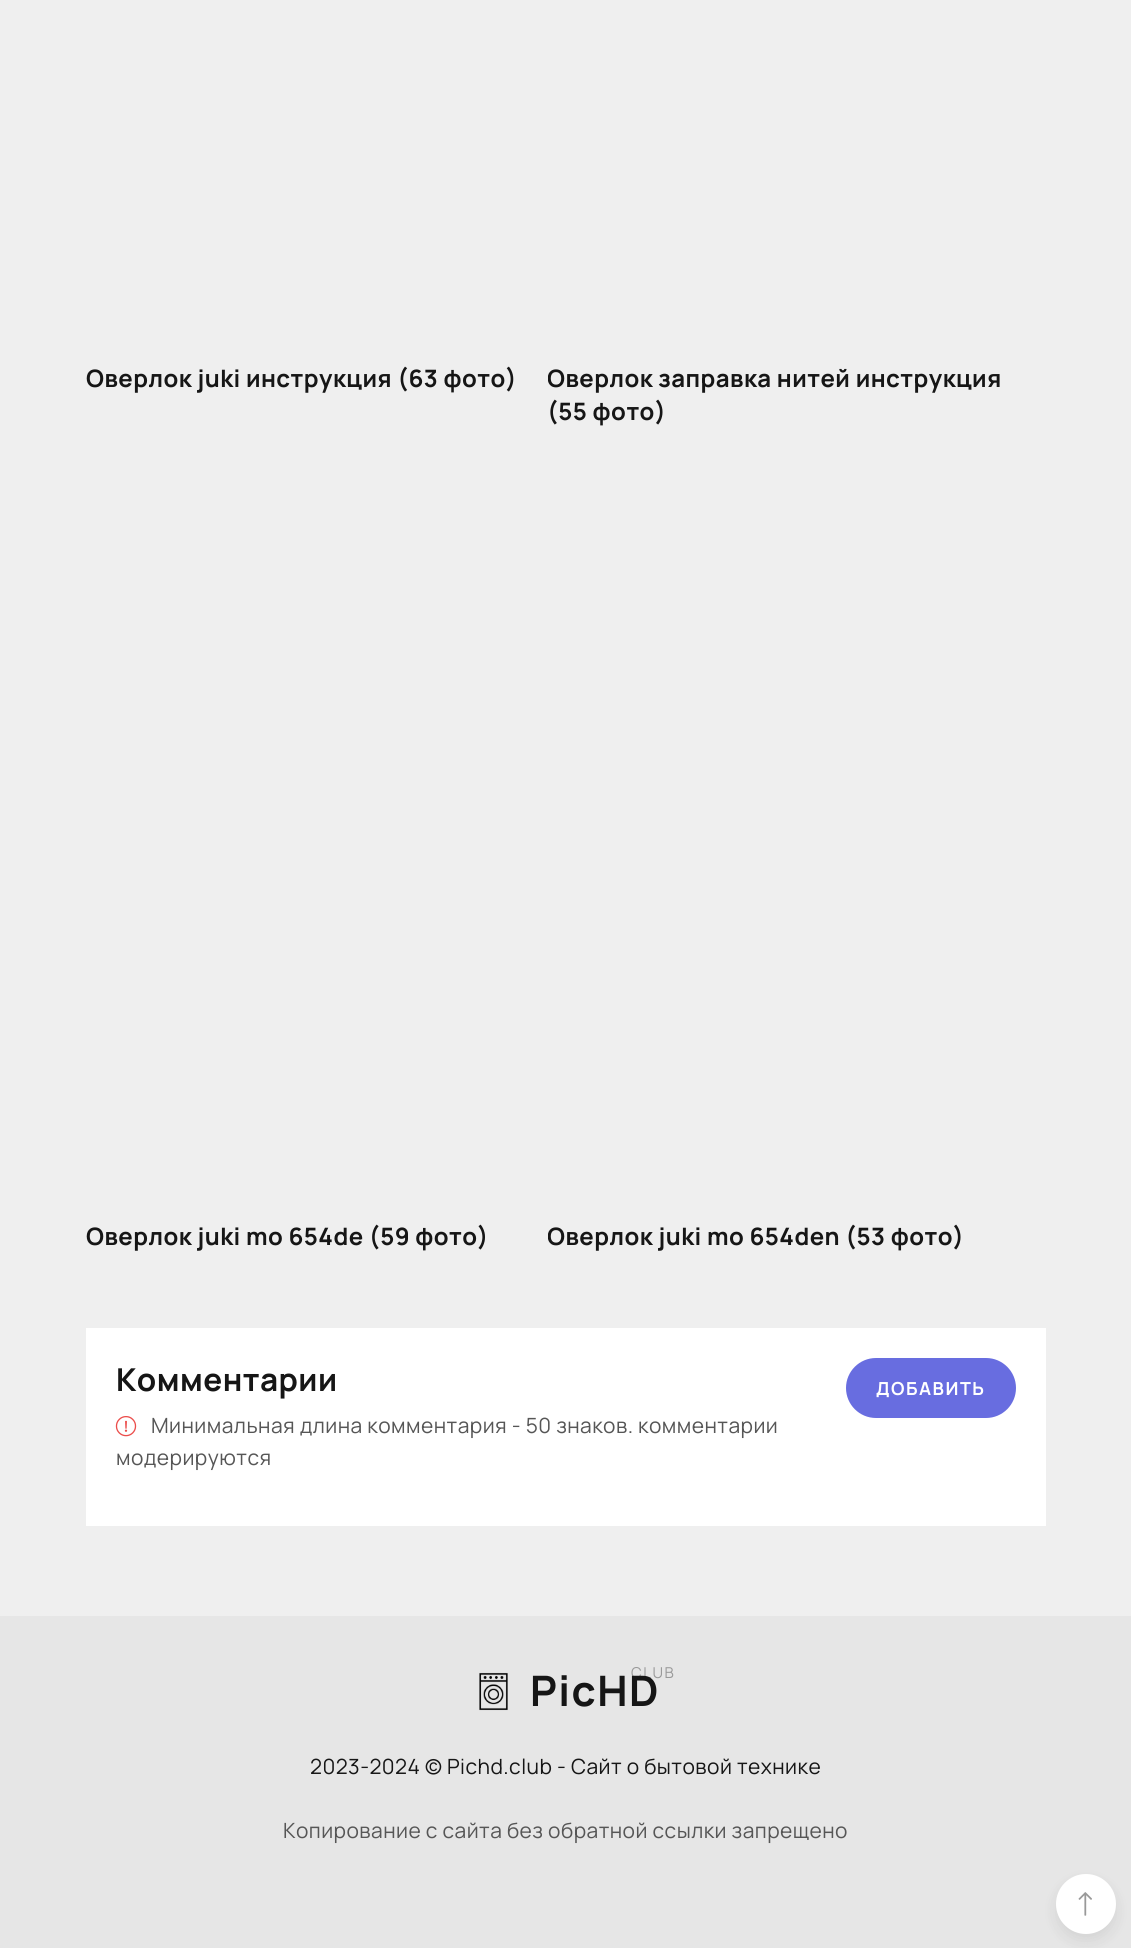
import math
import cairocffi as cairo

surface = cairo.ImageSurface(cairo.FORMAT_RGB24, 1131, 1948)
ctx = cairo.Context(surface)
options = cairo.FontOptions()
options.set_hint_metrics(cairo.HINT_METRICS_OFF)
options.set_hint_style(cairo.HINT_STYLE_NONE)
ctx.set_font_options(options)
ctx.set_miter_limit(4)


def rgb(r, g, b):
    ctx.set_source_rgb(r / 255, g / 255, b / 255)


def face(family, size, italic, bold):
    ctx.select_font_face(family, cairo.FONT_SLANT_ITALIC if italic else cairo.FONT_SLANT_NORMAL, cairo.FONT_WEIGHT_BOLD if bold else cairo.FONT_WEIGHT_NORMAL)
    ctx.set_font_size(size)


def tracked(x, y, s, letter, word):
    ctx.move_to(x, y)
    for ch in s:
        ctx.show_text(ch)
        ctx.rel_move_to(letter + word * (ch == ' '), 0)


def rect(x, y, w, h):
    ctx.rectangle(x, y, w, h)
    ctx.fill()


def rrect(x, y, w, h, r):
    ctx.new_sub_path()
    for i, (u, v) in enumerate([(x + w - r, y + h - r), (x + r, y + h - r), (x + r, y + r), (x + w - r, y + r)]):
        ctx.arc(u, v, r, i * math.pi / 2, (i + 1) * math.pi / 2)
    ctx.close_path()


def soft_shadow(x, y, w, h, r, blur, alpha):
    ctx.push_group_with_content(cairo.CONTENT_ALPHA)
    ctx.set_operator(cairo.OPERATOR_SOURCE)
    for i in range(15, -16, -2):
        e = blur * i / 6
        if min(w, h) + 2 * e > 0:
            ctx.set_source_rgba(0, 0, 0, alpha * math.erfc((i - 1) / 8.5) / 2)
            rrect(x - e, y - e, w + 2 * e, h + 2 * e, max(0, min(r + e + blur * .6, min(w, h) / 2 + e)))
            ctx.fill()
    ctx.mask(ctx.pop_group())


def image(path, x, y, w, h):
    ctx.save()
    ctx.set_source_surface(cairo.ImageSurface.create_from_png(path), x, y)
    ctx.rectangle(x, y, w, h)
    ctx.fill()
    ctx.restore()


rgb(239, 239, 239)
ctx.paint()
face('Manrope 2 ExtraLight', 24, 0, 0)
rgb(22, 22, 22)
tracked(86, 387, 'Оверлок juki инструкция (63 фото)', 0.45, 0)
ctx.save()
ctx.rectangle(548, 0, 498, 459)
ctx.clip()
tracked(547, 387, 'Оверлок заправка нитей инструкция', 0.45, 0)
ctx.restore()
tracked(547, 420, '(55 фото)', 0.45, 0)
tracked(86, 1245, 'Оверлок juki mo 654de (59 фото)', 0.45, 0)
ctx.save()
ctx.rectangle(548, 482, 498, 801)
ctx.clip()
tracked(547, 1245, 'Оверлок juki mo 654den (53 фото)', 0.45, 0)
ctx.restore()
rgb(255, 255, 255)
rect(86, 1328, 960, 198)
face('Manrope 2 ExtraLight', 31.5, 0, 0)
rgb(22, 22, 22)
tracked(116, 1391, 'Комментарии', 0.45, 0)
rgb(104, 109, 224)
rrect(846, 1358, 170, 60, 30)
ctx.fill()
face('Manrope 2 ExtraLight', 18, 0, 0)
rgb(255, 255, 255)
tracked(876, 1395, 'ДОБАВИТЬ', 1.5, 0)
image('image0.png', 115, 1416, 22, 21)
face('Manrope ExtraLight', 21, 0, 0)
rgb(86, 86, 86)
tracked(151, 1433, 'Минимальная длина комментария - 50 знаков. комментарии', 0.45, 0)
tracked(116, 1465, 'модерируются', 0.45, 0)
rgb(230, 230, 230)
rect(0, 1616, 1131, 332)
image('image1.png', 479, 1672, 29, 39)
face('Manrope ExtraLight', 15, 0, 0)
rgb(153, 153, 153)
tracked(631, 1678, 'CLUB', 1.5, 0)
face('Manrope 2 ExtraLight', 42, 0, 0)
rgb(22, 22, 22)
tracked(530, 1706, 'PicHD', 1.5, 0)
face('Manrope ExtraLight', 21, 0, 0)
tracked(310, 1774, '2023-2024 © Pichd.club - Сайт о бытовой технике', 0.45, 0)
rgb(86, 86, 86)
tracked(283, 1838, 'Копирование с сайта без обратной ссылки запрещено', 0.45, 0)
rgb(0, 0, 0)
soft_shadow(1056, 1881, 60, 60, 30, 7.5, 0.08)
rgb(255, 255, 255)
ctx.arc(1086, 1904, 30, 0, 2 * math.pi)
ctx.fill()
image('image2.png', 1078, 1892, 14, 24)
surface.write_to_png('render.png')
